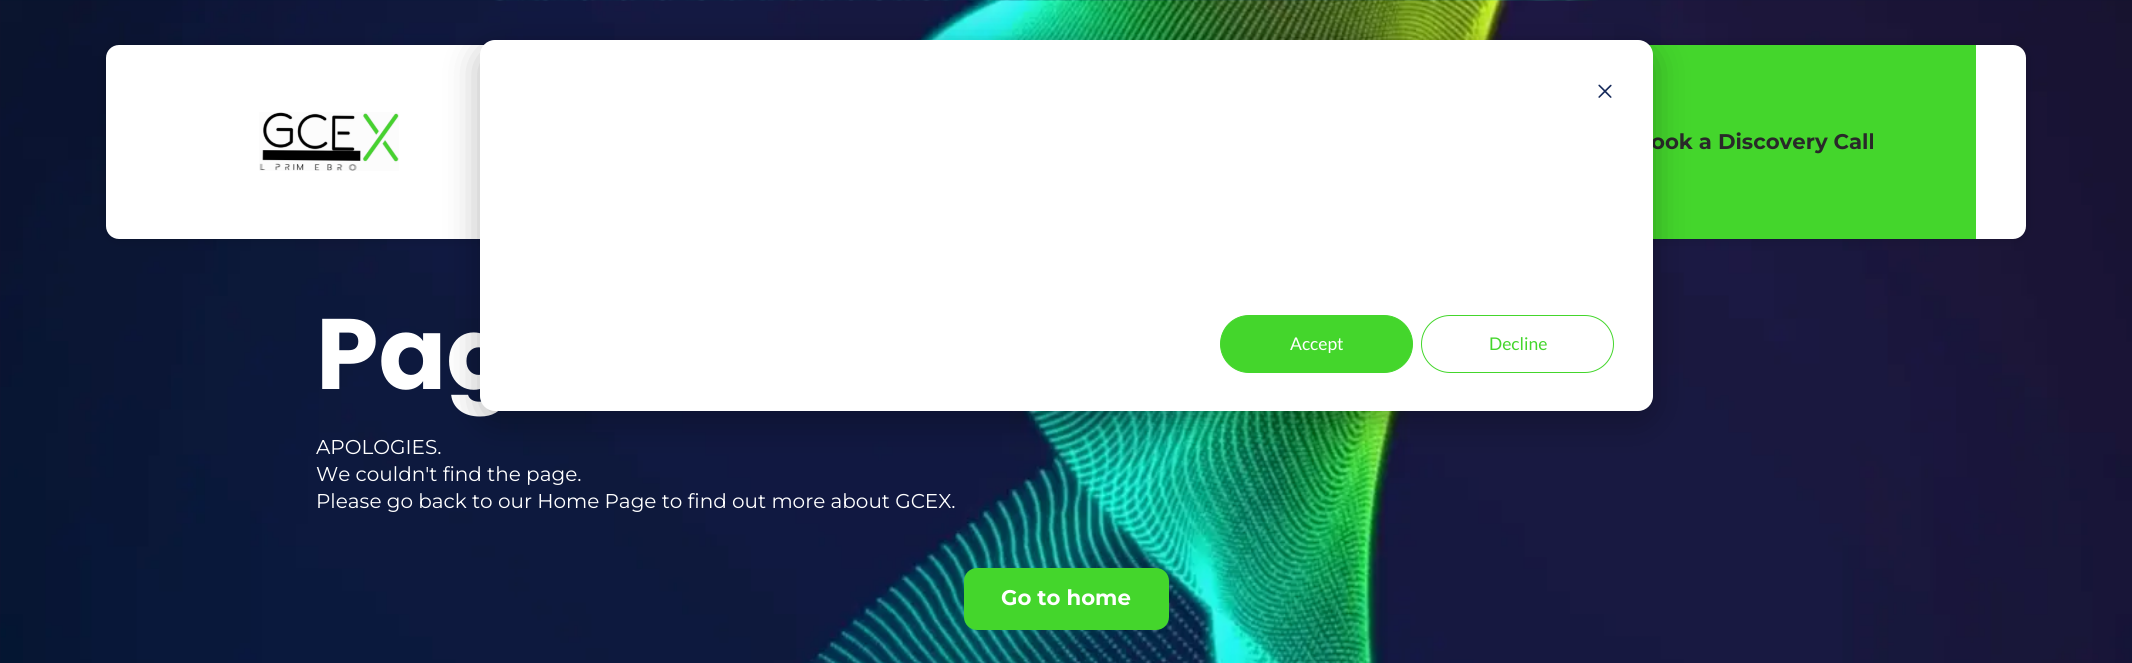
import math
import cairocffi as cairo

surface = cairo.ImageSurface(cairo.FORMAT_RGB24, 2132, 663)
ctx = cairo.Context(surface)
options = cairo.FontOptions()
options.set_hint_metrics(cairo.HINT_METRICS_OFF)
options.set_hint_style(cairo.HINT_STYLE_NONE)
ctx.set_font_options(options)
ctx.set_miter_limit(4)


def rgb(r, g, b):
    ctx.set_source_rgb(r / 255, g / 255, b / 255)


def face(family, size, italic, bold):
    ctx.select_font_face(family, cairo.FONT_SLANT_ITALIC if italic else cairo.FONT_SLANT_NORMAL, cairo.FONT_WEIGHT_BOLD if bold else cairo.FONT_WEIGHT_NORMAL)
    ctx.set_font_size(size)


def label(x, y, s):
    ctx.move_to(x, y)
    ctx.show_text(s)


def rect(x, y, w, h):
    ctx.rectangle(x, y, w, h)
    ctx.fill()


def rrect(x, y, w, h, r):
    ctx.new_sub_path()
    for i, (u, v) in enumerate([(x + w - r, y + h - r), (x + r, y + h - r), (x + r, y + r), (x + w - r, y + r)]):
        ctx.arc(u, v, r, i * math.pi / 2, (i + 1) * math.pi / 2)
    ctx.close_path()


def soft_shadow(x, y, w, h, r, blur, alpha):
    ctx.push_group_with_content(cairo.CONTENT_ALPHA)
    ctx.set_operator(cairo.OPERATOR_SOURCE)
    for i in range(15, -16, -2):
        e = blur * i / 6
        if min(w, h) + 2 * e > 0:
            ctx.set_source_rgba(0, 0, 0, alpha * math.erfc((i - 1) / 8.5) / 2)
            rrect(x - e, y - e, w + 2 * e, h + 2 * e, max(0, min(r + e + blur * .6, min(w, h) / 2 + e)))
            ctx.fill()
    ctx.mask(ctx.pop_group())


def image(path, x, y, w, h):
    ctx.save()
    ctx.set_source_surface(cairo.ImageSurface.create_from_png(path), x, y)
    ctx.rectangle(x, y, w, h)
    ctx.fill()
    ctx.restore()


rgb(255, 255, 255)
ctx.paint()
image('image0.png', 0, 0, 2132, 663)
rgb(0, 0, 0)
soft_shadow(106, 45, 1920, 194, 13, 6, 0.16)
rgb(255, 255, 255)
rrect(106, 45, 1920, 194, 13)
ctx.fill()
image('image1.png', 259, 112, 140, 59)
rgb(68, 214, 44)
rect(1649, 45, 327, 194)
face('Montserrat', 21.25, 0, 1)
rgb(41, 41, 41)
label(1651, 149, 'ook a Discovery Call')
face('Poppins', 100, 0, 1)
rgb(255, 255, 255)
label(316, 389, 'Pag')
face('Montserrat', 20, 0, 0)
label(316, 454, 'APOLOGIES.')
label(316, 481, 'We couldn\'t find the page.')
label(316, 508, 'Please go back to our Home Page to find out more about GCEX.')
rgb(68, 214, 44)
rrect(964, 568, 205, 62, 13)
ctx.fill()
face('Montserrat', 21.25, 0, 1)
rgb(255, 255, 255)
label(1001, 605, 'Go to home')
rgb(0, 0, 0)
soft_shadow(480, 50, 1173, 371, 15, 17.5, 0.28)
rgb(255, 255, 255)
rrect(480, 40, 1173, 371, 15)
ctx.fill()
image('image2.png', 1598, 84, 14, 14)
rgb(68, 214, 44)
rrect(1220.5, 315.5, 192, 57, 28.5)
ctx.fill_preserve()
ctx.set_line_width(1)
ctx.stroke()
face('Lato', 17.5, 0, 0)
rgb(255, 255, 255)
label(1290, 350, 'Accept')
rrect(1421.5, 315.5, 192, 57, 28.5)
rgb(68, 214, 44)
ctx.stroke()
label(1489, 350, 'Decline')
surface.write_to_png('render.png')
